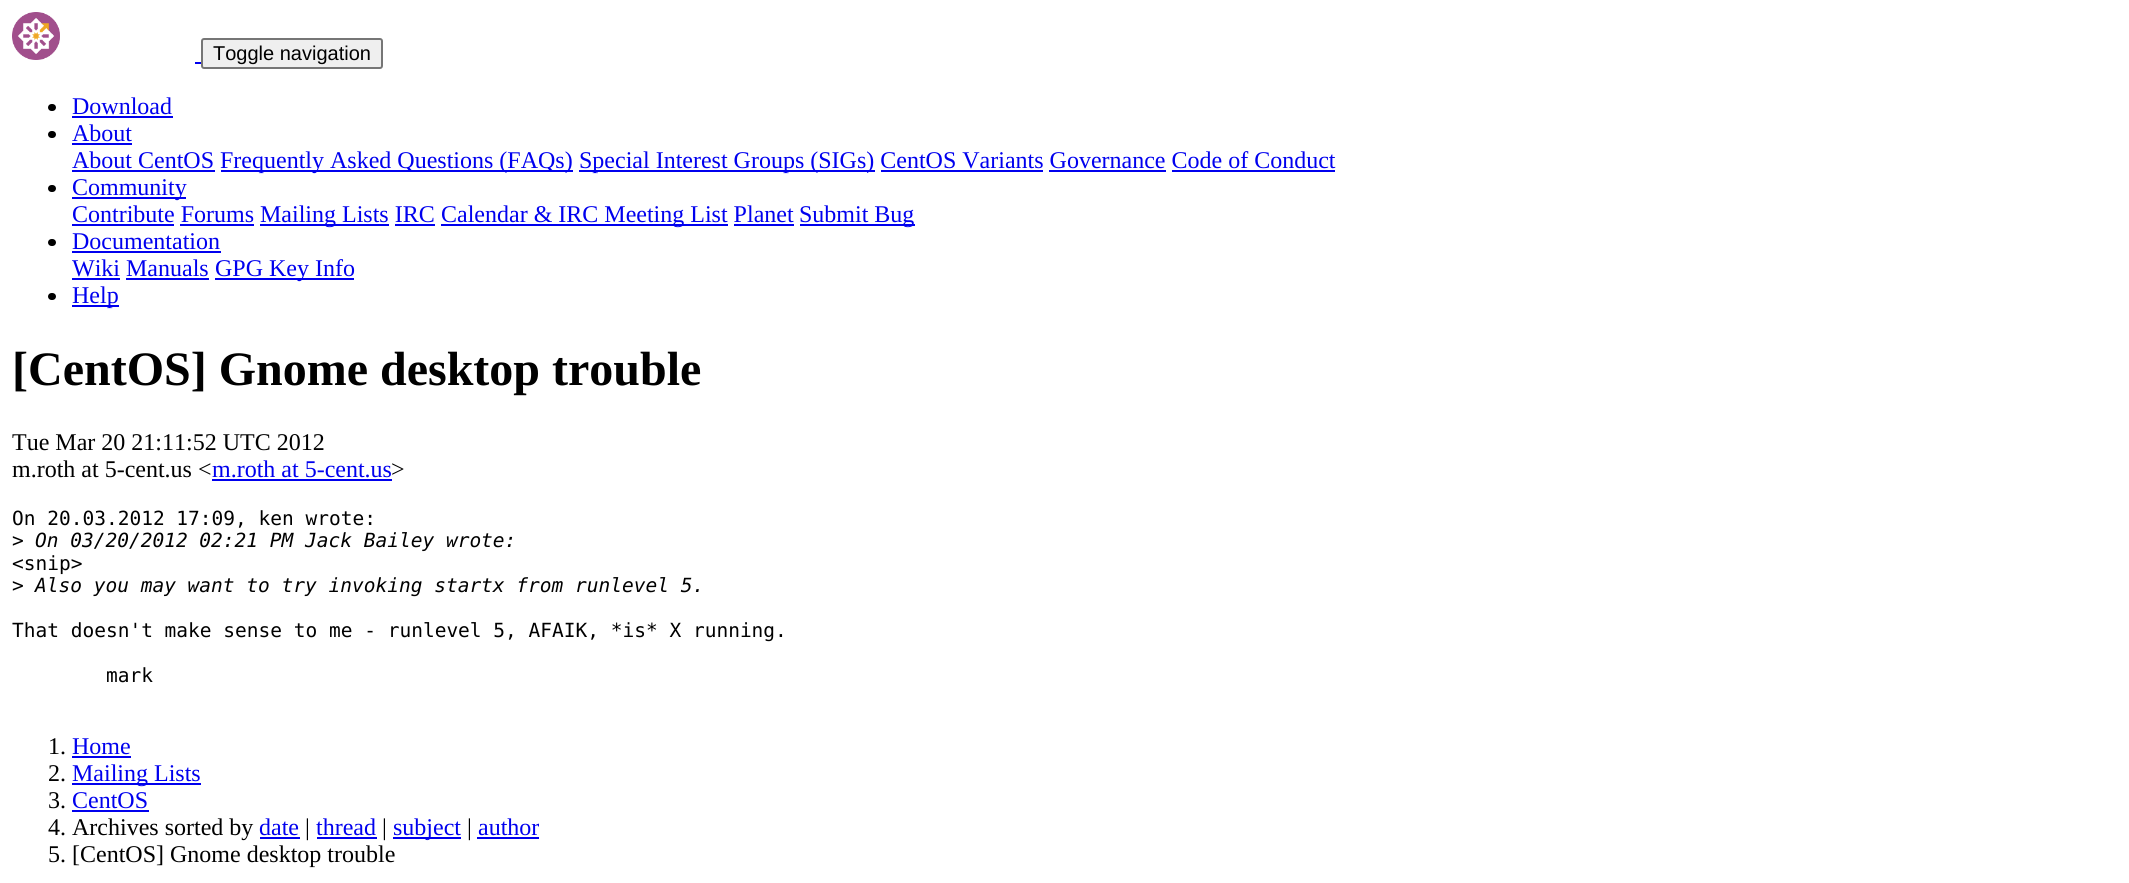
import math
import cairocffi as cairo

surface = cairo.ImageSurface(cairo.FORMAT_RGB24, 2129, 883)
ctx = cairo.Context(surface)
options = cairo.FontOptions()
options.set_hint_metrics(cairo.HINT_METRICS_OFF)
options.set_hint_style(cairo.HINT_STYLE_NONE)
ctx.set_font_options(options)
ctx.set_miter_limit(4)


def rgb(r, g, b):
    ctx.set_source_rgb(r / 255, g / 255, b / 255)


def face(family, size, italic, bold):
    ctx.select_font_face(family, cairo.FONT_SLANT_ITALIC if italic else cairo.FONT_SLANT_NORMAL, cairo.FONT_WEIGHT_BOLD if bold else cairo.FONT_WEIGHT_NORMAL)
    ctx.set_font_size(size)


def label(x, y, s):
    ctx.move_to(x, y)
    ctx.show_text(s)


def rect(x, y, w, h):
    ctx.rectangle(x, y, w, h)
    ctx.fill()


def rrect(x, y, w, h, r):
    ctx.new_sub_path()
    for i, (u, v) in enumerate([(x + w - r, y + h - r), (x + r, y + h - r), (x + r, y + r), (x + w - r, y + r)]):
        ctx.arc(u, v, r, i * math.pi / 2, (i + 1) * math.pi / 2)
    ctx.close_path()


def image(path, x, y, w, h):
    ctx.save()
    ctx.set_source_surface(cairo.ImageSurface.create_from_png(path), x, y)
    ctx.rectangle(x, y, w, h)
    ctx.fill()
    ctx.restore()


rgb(255, 255, 255)
ctx.paint()
image('image0.png', 12, 12, 48, 48)
rgb(0, 0, 238)
rect(195, 62, 6, 2)
rgb(239, 239, 239)
rrect(202, 39, 180, 29, 2)
ctx.fill_preserve()
rgb(118, 118, 118)
ctx.stroke()
face('Liberation Sans', 20, 0, 0)
rgb(0, 0, 0)
label(213, 60, 'Toggle navigation')
rrect(48, 104, 8, 7, 3.5)
ctx.fill()
face('Liberation Serif', 24, 0, 0)
rgb(0, 0, 238)
label(72, 114, 'Download')
rect(72, 116, 101, 2)
rgb(0, 0, 0)
rrect(48, 131, 8, 7, 3.5)
ctx.fill()
rgb(0, 0, 238)
label(72, 141, 'About')
rect(72, 143, 60, 2)
label(72, 168, 'About CentOS')
rect(72, 170, 143, 2)
rect(221, 170, 352, 2)
label(220, 168, 'Frequently Asked Questions (FAQs)')
rect(579, 170, 296, 2)
label(579, 168, 'Special Interest Groups (SIGs) CentOS Variants Governance Code of Conduct')
rect(881, 170, 162, 2)
rect(1049, 170, 117, 2)
rect(1172, 170, 163, 2)
rgb(0, 0, 0)
rrect(48, 185, 8, 7, 3.5)
ctx.fill()
rgb(0, 0, 238)
rect(72, 197, 114, 2)
label(72, 195, 'Community')
label(72, 222, 'Contribute Forums')
rect(72, 224, 102, 2)
rect(260, 224, 129, 2)
label(260, 222, 'Mailing Lists IRC')
rect(441, 224, 287, 2)
label(441, 222, 'Calendar & IRC Meeting List Planet')
rect(800, 224, 115, 2)
label(799, 222, 'Submit Bug')
rect(180, 224, 74, 2)
rect(395, 224, 40, 2)
rect(734, 224, 60, 2)
rgb(0, 0, 0)
rrect(48, 239, 8, 7, 3.5)
ctx.fill()
rgb(0, 0, 238)
label(72, 249, 'Documentation')
rect(72, 251, 149, 2)
label(72, 276, 'Wiki Manuals')
rect(72, 278, 48, 2)
rect(215, 278, 139, 2)
label(215, 276, 'GPG Key Info')
rect(126, 278, 83, 2)
rgb(0, 0, 0)
rrect(48, 293, 8, 7, 3.5)
ctx.fill()
rgb(0, 0, 238)
rect(72, 305, 47, 2)
label(72, 303, 'Help')
face('Liberation Serif', 48, 0, 1)
rgb(0, 0, 0)
label(12, 385, '[CentOS] Gnome desktop trouble')
face('Liberation Serif', 24, 0, 0)
label(12, 450, 'Tue Mar 20 21:11:52 UTC 2012')
label(12, 477, 'm.roth at 5-cent.us <')
rgb(0, 0, 238)
label(212, 477, 'm.roth at 5-cent.us')
rect(212, 479, 180, 2)
rgb(0, 0, 0)
label(391, 477, '>')
face('DejaVu Sans Mono', 19.5, 0, 0)
label(12, 525, 'On 20.03.2012 17:09, ken wrote:')
label(12, 547, '>')
face('DejaVu Sans Mono', 19.5, 1, 0)
label(35, 547, 'On 03/20/2012 02:21 PM Jack Bailey wrote:')
face('DejaVu Sans Mono', 19.5, 0, 0)
label(12, 570, '<snip>')
label(12, 592, '>')
face('DejaVu Sans Mono', 19.5, 1, 0)
label(35, 592, 'Also you may want to try invoking startx from runlevel 5.')
face('DejaVu Sans Mono', 19.5, 0, 0)
label(12, 637, 'That doesn\'t make sense to me - runlevel 5, AFAIK, *is* X running.')
label(106, 682, 'mark')
face('Liberation Serif', 24, 0, 0)
label(48, 754, '1.')
rgb(0, 0, 238)
label(72, 754, 'Home')
rect(72, 756, 59, 2)
rgb(0, 0, 0)
label(48, 781, '2.')
rgb(0, 0, 238)
rect(72, 783, 129, 2)
label(72, 781, 'Mailing Lists')
rgb(0, 0, 0)
label(48, 808, '3.')
rgb(0, 0, 238)
label(72, 808, 'CentOS')
rect(72, 810, 77, 2)
rgb(0, 0, 0)
label(48, 835, '4. Archives sorted by')
rgb(0, 0, 238)
label(259, 835, 'date')
rect(260, 837, 40, 2)
rgb(0, 0, 0)
label(305, 835, '|')
rgb(0, 0, 238)
label(316, 835, 'thread')
rect(317, 837, 60, 2)
rgb(0, 0, 0)
label(382, 835, '|')
rgb(0, 0, 238)
rect(393, 837, 68, 2)
label(393, 835, 'subject')
rgb(0, 0, 0)
label(467, 835, '|')
rgb(0, 0, 238)
label(478, 835, 'author')
rect(477, 837, 62, 2)
rgb(0, 0, 0)
label(48, 862, '5. [CentOS] Gnome desktop trouble')
surface.write_to_png('render.png')
